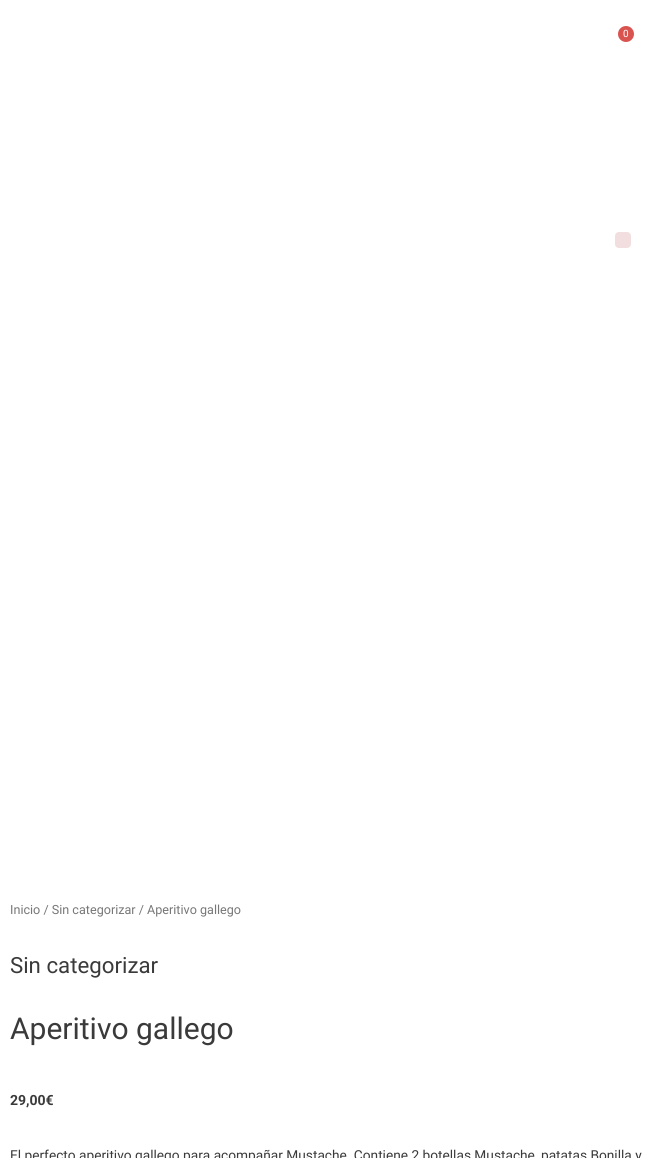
import math
import cairocffi as cairo

surface = cairo.ImageSurface(cairo.FORMAT_RGB24, 664, 1158)
ctx = cairo.Context(surface)
options = cairo.FontOptions()
options.set_hint_metrics(cairo.HINT_METRICS_OFF)
options.set_hint_style(cairo.HINT_STYLE_NONE)
ctx.set_font_options(options)
ctx.set_miter_limit(4)


def rgb(r, g, b):
    ctx.set_source_rgb(r / 255, g / 255, b / 255)


def face(family, size, italic, bold):
    ctx.select_font_face(family, cairo.FONT_SLANT_ITALIC if italic else cairo.FONT_SLANT_NORMAL, cairo.FONT_WEIGHT_BOLD if bold else cairo.FONT_WEIGHT_NORMAL)
    ctx.set_font_size(size)


def label(x, y, s):
    ctx.move_to(x, y)
    ctx.show_text(s)


def rrect(x, y, w, h, r):
    ctx.new_sub_path()
    for i, (u, v) in enumerate([(x + w - r, y + h - r), (x + r, y + h - r), (x + r, y + r), (x + w - r, y + r)]):
        ctx.arc(u, v, r, i * math.pi / 2, (i + 1) * math.pi / 2)
    ctx.close_path()


rgb(255, 255, 255)
ctx.paint()
rgb(217, 83, 79)
ctx.arc(626, 34, 8, 0, 2 * math.pi)
ctx.fill()
face('Roboto', 10, 0, 0)
rgb(255, 255, 255)
label(623, 37, '0')
face('Roboto', 12.6, 0, 0)
rgb(119, 119, 119)
label(10, 914, 'Inicio / Sin categorizar / Aperitivo gallego')
face('Roboto', 22.25, 0, 0)
rgb(58, 58, 58)
label(10, 973, 'Sin categorizar')
face('Roboto', 30, 0, 0)
label(10, 1039, 'Aperitivo gallego')
face('Roboto', 14, 0, 1)
label(10, 1105, '29,00€')
face('Roboto', 13.7, 0, 0)
label(10, 1160, 'El perfecto aperitivo gallego para acompañar Mustache. Contiene 2 botellas Mustache, patatas Bonilla y')
rgb(242, 222, 222)
rrect(615, 232, 16, 16, 4)
ctx.fill()
surface.write_to_png('render.png')
